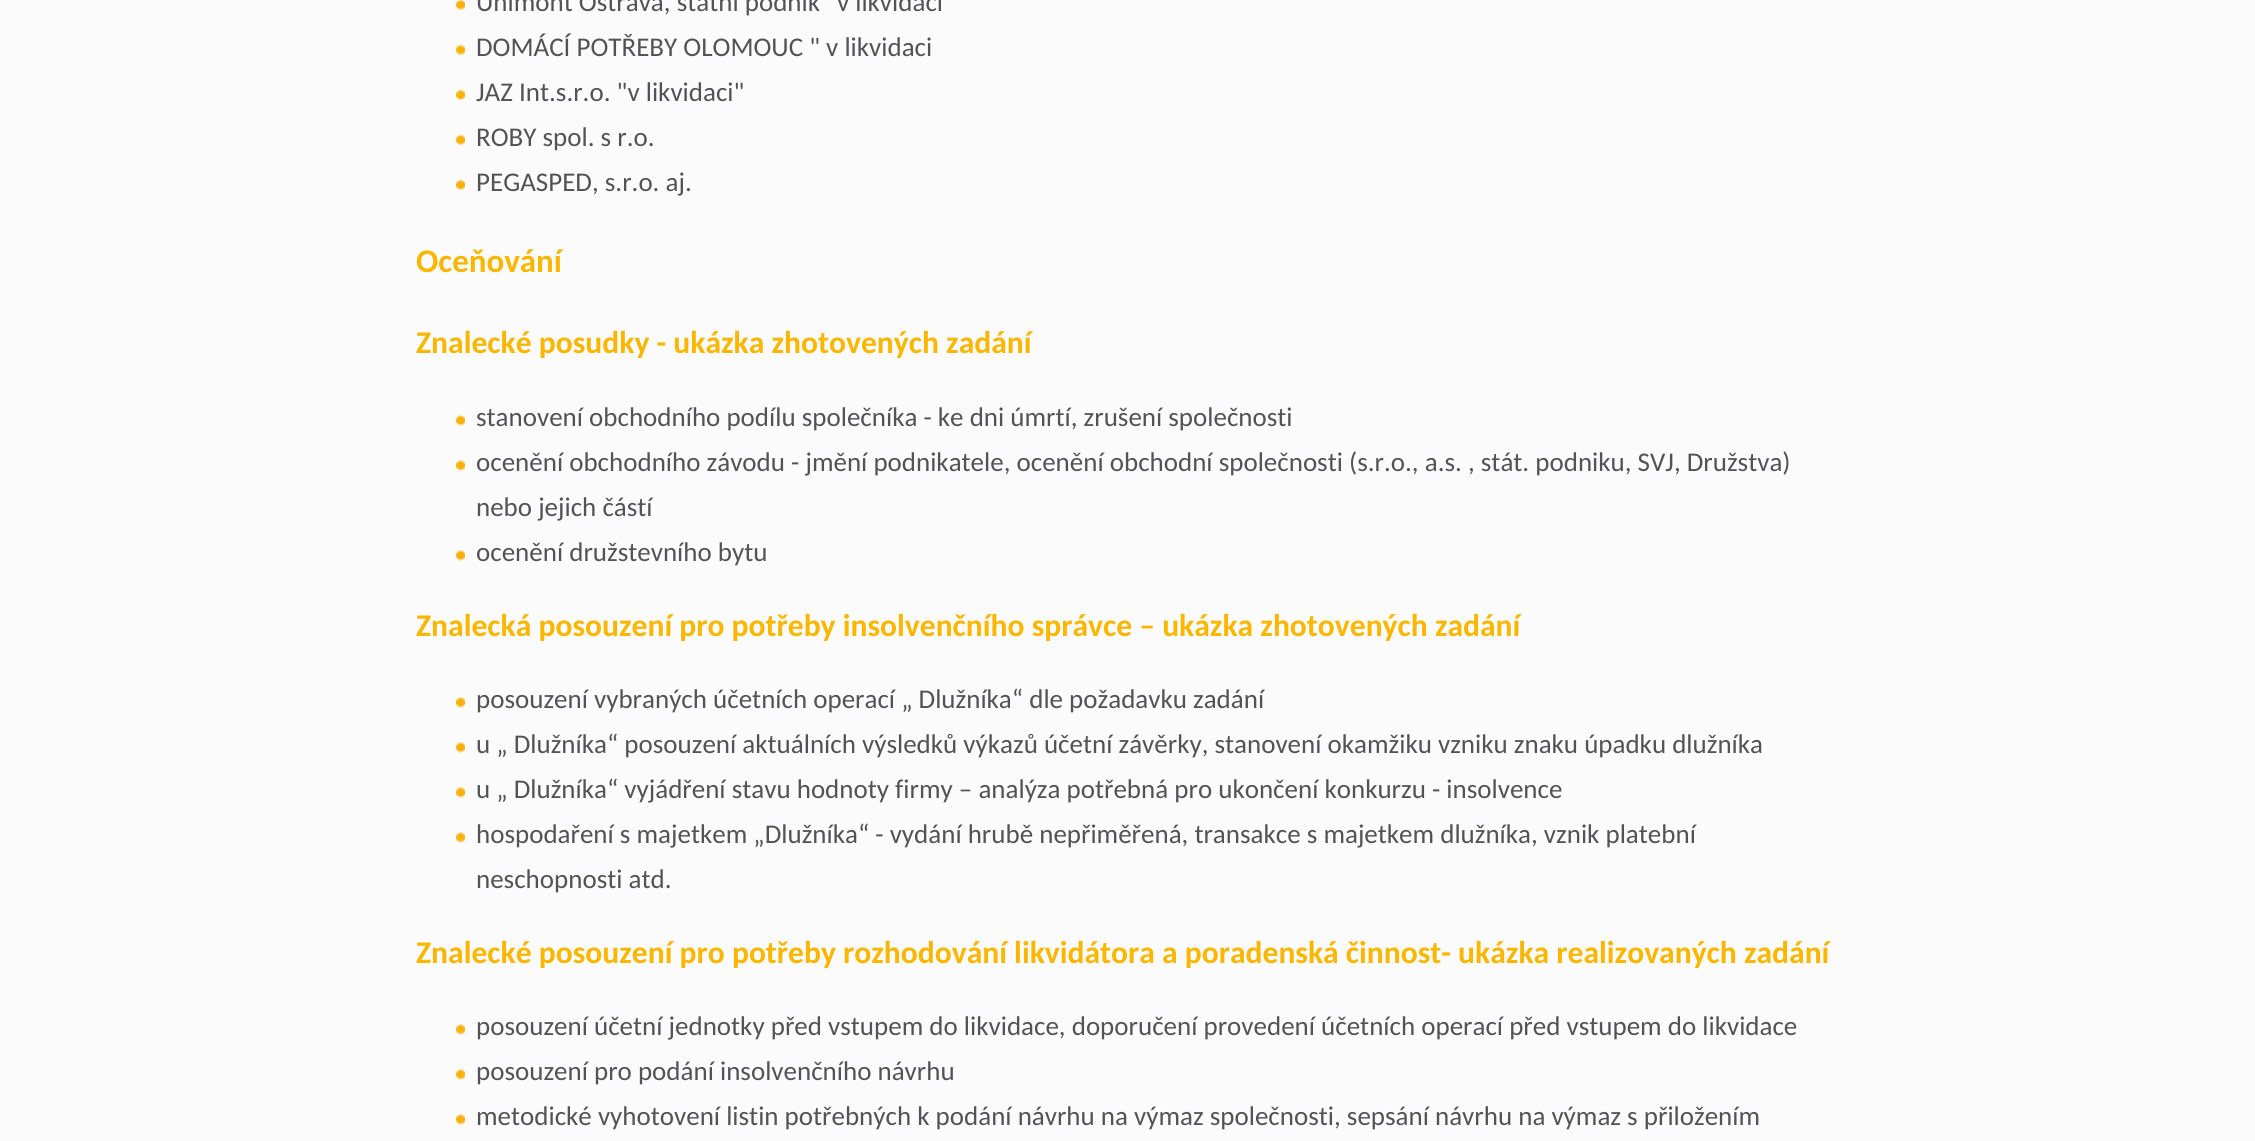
import math
import cairocffi as cairo

surface = cairo.ImageSurface(cairo.FORMAT_RGB24, 2255, 1141)
ctx = cairo.Context(surface)
options = cairo.FontOptions()
options.set_hint_metrics(cairo.HINT_METRICS_OFF)
options.set_hint_style(cairo.HINT_STYLE_NONE)
ctx.set_font_options(options)
ctx.set_miter_limit(4)


def rgb(r, g, b):
    ctx.set_source_rgb(r / 255, g / 255, b / 255)


def face(family, size, italic, bold):
    ctx.select_font_face(family, cairo.FONT_SLANT_ITALIC if italic else cairo.FONT_SLANT_NORMAL, cairo.FONT_WEIGHT_BOLD if bold else cairo.FONT_WEIGHT_NORMAL)
    ctx.set_font_size(size)


def label(x, y, s):
    ctx.move_to(x, y)
    ctx.show_text(s)


def image(path, x, y, w, h):
    ctx.save()
    ctx.set_source_surface(cairo.ImageSurface.create_from_png(path), x, y)
    ctx.rectangle(x, y, w, h)
    ctx.fill()
    ctx.restore()


rgb(251, 251, 251)
ctx.paint()
image('image0.png', 456, 0, 9, 10)
face('Carlito', 27, 0, 0)
rgb(83, 83, 87)
label(476, 11, 'Unimont Ostrava, státní podnik "v likvidaci')
image('image1.png', 456, 44, 9, 11)
label(476, 56, 'DOMÁCÍ POTŘEBY OLOMOUC " v likvidaci')
image('image1.png', 456, 89, 9, 11)
label(476, 101, 'JAZ Int.s.r.o. "v likvidaci"')
image('image1.png', 456, 134, 9, 11)
label(476, 146, 'ROBY spol. s r.o.')
image('image1.png', 456, 179, 9, 11)
label(476, 191, 'PEGASPED, s.r.o. aj.')
face('Carlito', 33, 0, 1)
rgb(251, 182, 0)
label(416, 272, 'Oceňování')
face('Carlito', 31.6, 0, 1)
label(416, 353, 'Znalecké posudky - ukázka zhotovených zadání')
image('image2.png', 456, 415, 9, 11)
face('Carlito', 27, 0, 0)
rgb(83, 83, 87)
label(476, 426, 'stanovení obchodního podílu společníka - ke dni úmrtí, zrušení společnosti')
image('image2.png', 456, 460, 9, 11)
label(476, 471, 'ocenění obchodního závodu - jmění podnikatele, ocenění obchodní společnosti (s.r.o., a.s. , stát. podniku, SVJ, Družstva)')
label(476, 516, 'nebo jejich částí')
image('image2.png', 456, 550, 9, 11)
label(476, 561, 'ocenění družstevního bytu')
face('Carlito', 31.6, 0, 1)
rgb(251, 182, 0)
label(416, 636, 'Znalecká posouzení pro potřeby insolvenčního správce – ukázka zhotovených zadání')
image('image2.png', 456, 697, 9, 11)
face('Carlito', 27, 0, 0)
rgb(83, 83, 87)
label(476, 708, 'posouzení vybraných účetních operací „ Dlužníka“ dle požadavku zadání')
image('image2.png', 456, 742, 9, 11)
label(476, 753, 'u „ Dlužníka“ posouzení aktuálních výsledků výkazů účetní závěrky, stanovení okamžiku vzniku znaku úpadku dlužníka')
image('image2.png', 456, 787, 9, 11)
label(476, 798, 'u „ Dlužníka“ vyjádření stavu hodnoty firmy – analýza potřebná pro ukončení konkurzu - insolvence')
image('image2.png', 456, 832, 9, 11)
label(476, 843, 'hospodaření s majetkem „Dlužníka“ - vydání hrubě nepřiměřená, transakce s majetkem dlužníka, vznik platební')
label(476, 888, 'neschopnosti atd.')
face('Carlito', 31.6, 0, 1)
rgb(251, 182, 0)
label(416, 963, 'Znalecké posouzení pro potřeby rozhodování likvidátora a poradenská činnost- ukázka realizovaných zadání')
image('image2.png', 456, 1024, 9, 11)
face('Carlito', 27, 0, 0)
rgb(83, 83, 87)
label(476, 1035, 'posouzení účetní jednotky před vstupem do likvidace, doporučení provedení účetních operací před vstupem do likvidace')
image('image2.png', 456, 1069, 9, 11)
label(476, 1080, 'posouzení pro podání insolvenčního návrhu')
image('image2.png', 456, 1114, 9, 11)
label(476, 1125, 'metodické vyhotovení listin potřebných k podání návrhu na výmaz společnosti, sepsání návrhu na výmaz s přiložením')
surface.write_to_png('render.png')
